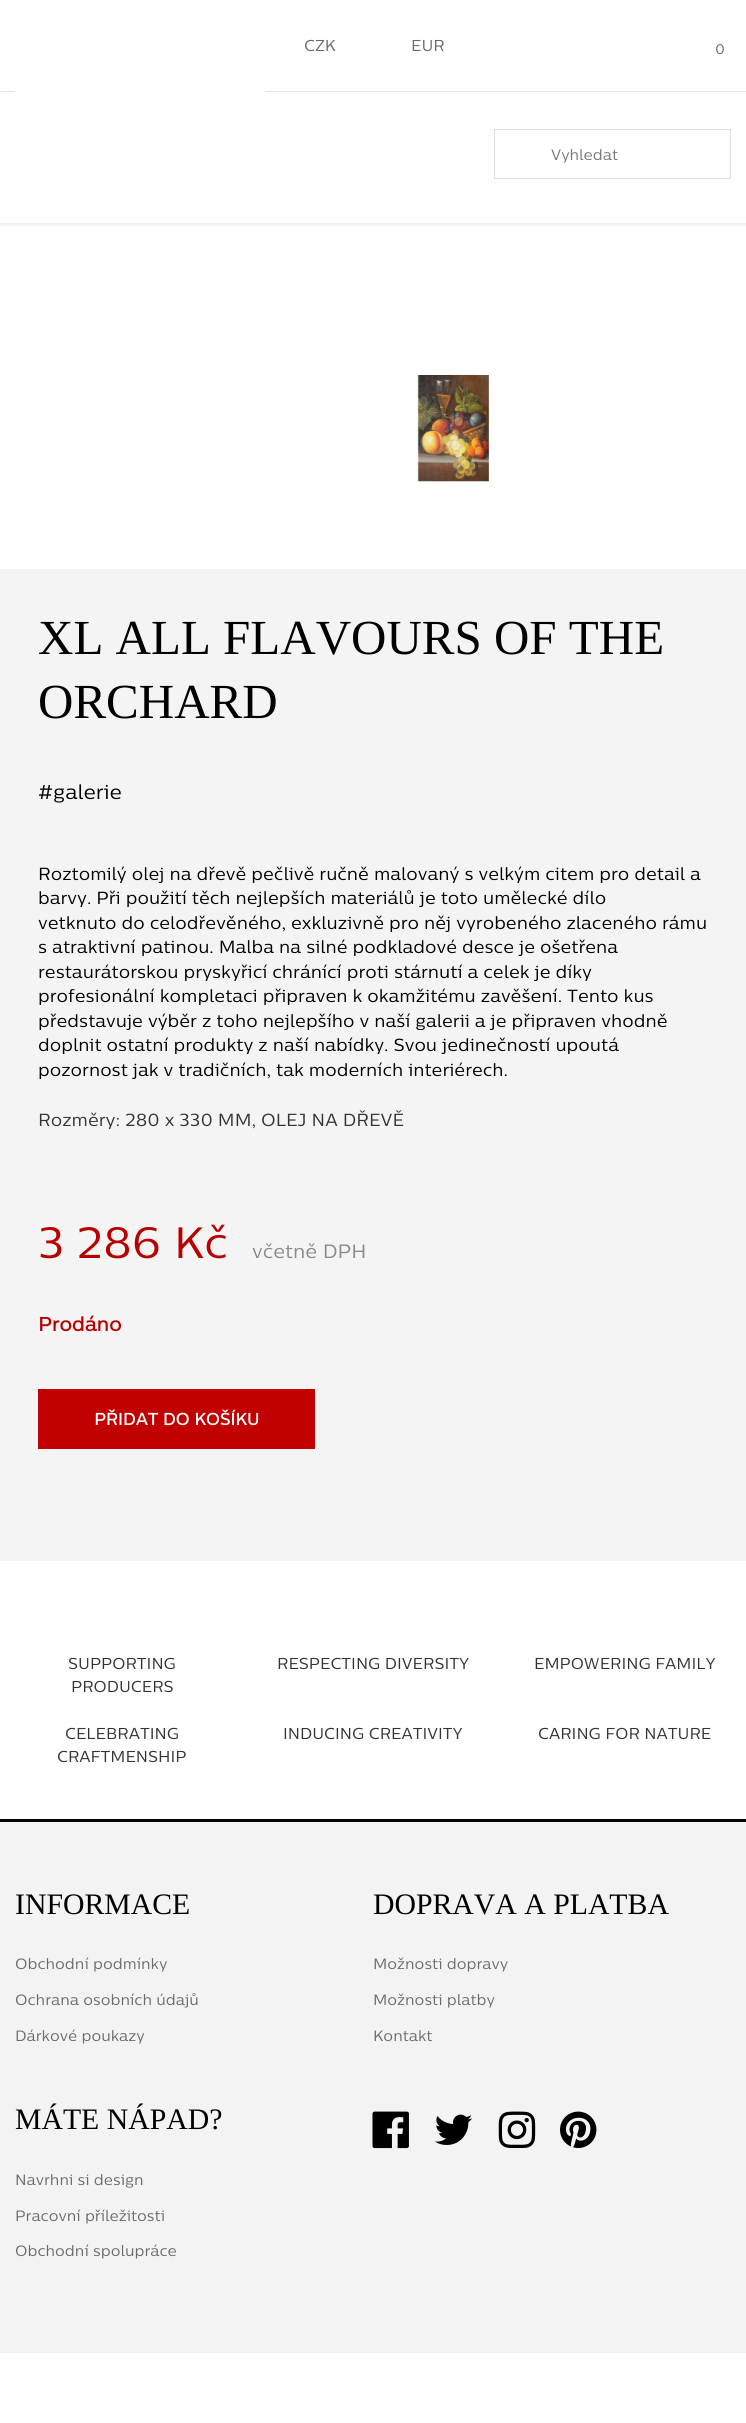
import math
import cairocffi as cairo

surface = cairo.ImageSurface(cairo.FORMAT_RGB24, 746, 2423)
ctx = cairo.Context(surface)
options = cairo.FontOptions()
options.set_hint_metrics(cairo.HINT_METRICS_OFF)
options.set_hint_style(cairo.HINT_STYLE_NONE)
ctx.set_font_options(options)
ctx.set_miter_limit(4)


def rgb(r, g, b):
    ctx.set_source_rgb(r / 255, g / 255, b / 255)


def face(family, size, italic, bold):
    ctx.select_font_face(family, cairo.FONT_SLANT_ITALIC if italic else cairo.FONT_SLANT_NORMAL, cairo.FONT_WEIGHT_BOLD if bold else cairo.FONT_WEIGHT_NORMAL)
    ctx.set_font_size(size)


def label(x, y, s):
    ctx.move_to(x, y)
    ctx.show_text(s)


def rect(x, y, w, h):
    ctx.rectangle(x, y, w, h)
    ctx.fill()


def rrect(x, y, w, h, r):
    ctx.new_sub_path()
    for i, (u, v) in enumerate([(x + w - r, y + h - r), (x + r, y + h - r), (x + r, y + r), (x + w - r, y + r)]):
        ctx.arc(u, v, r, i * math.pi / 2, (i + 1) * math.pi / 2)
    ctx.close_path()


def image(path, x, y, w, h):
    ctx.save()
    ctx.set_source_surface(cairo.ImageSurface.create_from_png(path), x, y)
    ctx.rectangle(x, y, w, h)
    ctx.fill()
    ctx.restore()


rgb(255, 255, 255)
ctx.paint()
rgb(229, 229, 229)
rect(0, 91, 746, 1)
face('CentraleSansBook', 15.75, 0, 0)
rgb(106, 106, 106)
label(304, 51, 'CZK')
label(411, 51, 'EUR')
face('CentraleSansBook', 14, 0, 0)
label(715, 54, '0')
rgb(255, 255, 255)
rect(15, 91, 250, 1)
rrect(494.5, 129.5, 236, 49, 0.5)
rgb(221, 221, 221)
ctx.set_line_width(1)
ctx.stroke()
face('CentraleSansBook', 14.9, 0, 0)
rgb(117, 117, 117)
label(551, 160, 'Vyhledat')
rgb(243, 243, 243)
rect(0, 223, 746, 3)
image('image0.png', 417, 375, 76, 107)
rgb(244, 244, 244)
rect(0, 569, 746, 992)
face('Liberation Serif', 49, 0, 0)
rgb(0, 0, 0)
label(38, 654, 'XL ALL FLAVOURS OF THE')
label(38, 718, 'ORCHARD')
face('CentraleSansBook', 20, 0, 0)
label(38, 799, '#galerie')
face('CentraleSansBook', 17.5, 0, 0)
label(38, 880, 'Roztomilý olej na dřevě pečlivě ručně malovaný s velkým citem pro detail a')
label(38, 904, 'barvy. Při použití těch nejlepších materiálů je toto umělecké dílo')
label(38, 929, 'vetknuto do celodřevěného, exkluzivně pro něj vyrobeného zlaceného rámu')
label(38, 953, 's atraktivní patinou. Malba na silné podkladové desce je ošetřena')
label(38, 978, 'restaurátorskou pryskyřicí chránící proti stárnutí a celek je díky')
label(38, 1002, 'profesionální kompletaci připraven k okamžitému zavěšení. Tento kus')
label(38, 1027, 'představuje výběr z toho nejlepšího v naší galerii a je připraven vhodně')
label(38, 1051, 'doplnit ostatní produkty z naší nabídky. Svou jedinečností upoutá')
label(38, 1076, 'pozornost jak v tradičních, tak moderních interiérech.')
rgb(51, 51, 51)
label(38, 1126, 'Rozměry: 280 x 330 MM, OLEJ NA DŘEVĚ')
face('CentraleSansBook', 43.75, 0, 0)
rgb(185, 0, 0)
label(38, 1258, '3 286 Kč')
face('CentraleSansBook', 19.25, 0, 0)
rgb(137, 137, 137)
label(252, 1258, 'včetně DPH')
face('CentraleSansBook', 19.25, 0, 1)
rgb(185, 0, 0)
label(38, 1331, 'Prodáno')
rgb(194, 0, 0)
rect(38, 1389, 277, 60)
face('CentraleSansBook', 16.6, 0, 1)
rgb(255, 255, 255)
label(94, 1425, 'PŘIDAT DO KOŠÍKU')
face('CentraleSansBook', 15.75, 0, 0)
rgb(51, 51, 51)
label(68, 1669, 'SUPPORTING')
label(71, 1692, 'PRODUCERS')
label(277, 1669, 'RESPECTING DIVERSITY')
label(534, 1669, 'EMPOWERING FAMILY')
label(65, 1739, 'CELEBRATING')
label(57, 1762, 'CRAFTMENSHIP')
label(283, 1739, 'INDUCING CREATIVITY')
label(538, 1739, 'CARING FOR NATURE')
rgb(243, 243, 243)
rect(0, 1822, 746, 531)
rgb(0, 0, 0)
rect(0, 1819, 746, 3)
face('Liberation Serif', 29.75, 0, 0)
label(15, 1914, 'INFORMACE')
face('CentraleSansBook', 14.9, 0, 0)
rgb(106, 106, 106)
label(15, 1969, 'Obchodní podmínky')
label(15, 2005, 'Ochrana osobních údajů')
label(15, 2041, 'Dárkové poukazy')
face('Liberation Serif', 29.75, 0, 0)
rgb(0, 0, 0)
label(373, 1914, 'DOPRAVA A PLATBA')
face('CentraleSansBook', 14.9, 0, 0)
rgb(106, 106, 106)
label(373, 1969, 'Možnosti dopravy')
label(373, 2005, 'Možnosti platby')
label(373, 2041, 'Kontakt')
face('Liberation Serif', 29.75, 0, 0)
rgb(0, 0, 0)
label(15, 2129, 'MÁTE NÁPAD?')
face('CentraleSansBook', 14.9, 0, 0)
rgb(106, 106, 106)
label(15, 2185, 'Navrhni si design')
label(15, 2221, 'Pracovní příležitosti')
label(15, 2256, 'Obchodní spolupráce')
image('image1.png', 372, 2111, 37, 38)
image('image2.png', 435, 2114, 37, 31)
image('image3.png', 498, 2111, 38, 38)
image('image4.png', 560, 2111, 37, 37)
surface.write_to_png('render.png')
